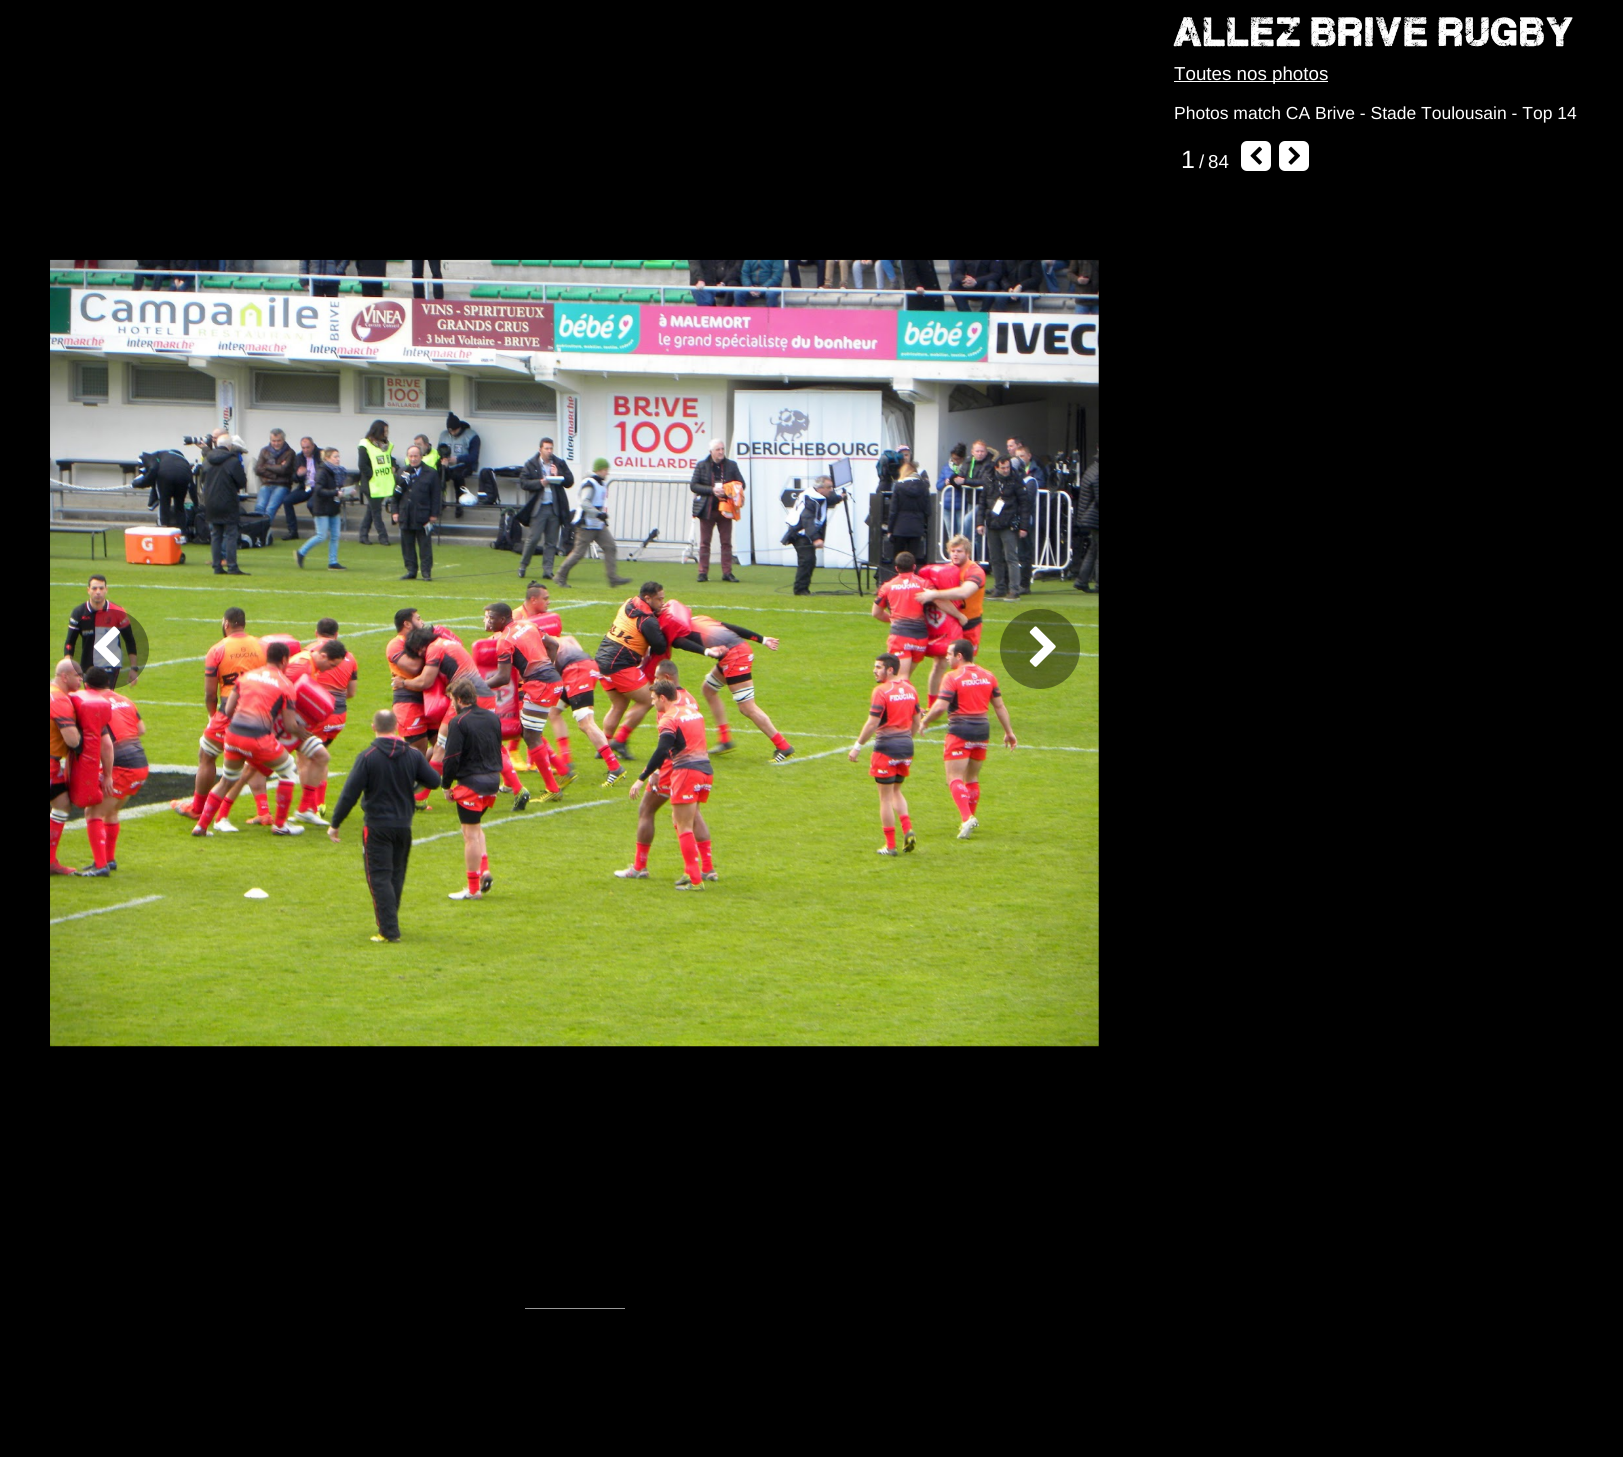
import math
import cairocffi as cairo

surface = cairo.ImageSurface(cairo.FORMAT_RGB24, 1623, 1457)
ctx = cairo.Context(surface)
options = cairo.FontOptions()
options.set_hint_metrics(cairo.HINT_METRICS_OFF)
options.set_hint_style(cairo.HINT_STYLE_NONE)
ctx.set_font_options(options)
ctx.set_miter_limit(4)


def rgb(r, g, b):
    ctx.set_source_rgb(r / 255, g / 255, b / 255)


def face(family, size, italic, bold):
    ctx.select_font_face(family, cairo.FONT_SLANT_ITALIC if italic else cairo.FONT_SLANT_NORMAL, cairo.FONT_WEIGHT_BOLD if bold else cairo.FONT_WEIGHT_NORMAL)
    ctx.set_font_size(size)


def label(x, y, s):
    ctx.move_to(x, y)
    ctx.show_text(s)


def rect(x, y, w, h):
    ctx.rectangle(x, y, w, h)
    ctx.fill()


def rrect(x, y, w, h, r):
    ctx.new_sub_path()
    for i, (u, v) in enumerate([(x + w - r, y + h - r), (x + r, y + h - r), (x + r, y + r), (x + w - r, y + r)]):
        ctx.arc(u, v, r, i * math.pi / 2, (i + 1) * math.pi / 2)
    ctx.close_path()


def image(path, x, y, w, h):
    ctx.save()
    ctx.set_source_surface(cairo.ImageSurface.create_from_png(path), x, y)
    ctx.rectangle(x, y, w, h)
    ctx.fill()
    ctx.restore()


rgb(0, 0, 0)
ctx.paint()
image('image0.png', 1173, 17, 400, 30)
rgb(255, 255, 255)
rect(1174, 81, 154, 1)
face('Liberation Sans', 18.75, 0, 0)
label(1174, 80, 'Toutes nos photos')
face('Liberation Sans', 17.5, 0, 0)
label(1174, 119, 'Photos match CA Brive - Stade Toulousain - Top 14')
face('Liberation Sans', 25, 0, 0)
label(1181, 168, '1')
face('Liberation Sans', 18.75, 0, 0)
label(1199, 168, '/')
label(1208, 168, '84')
rrect(1241, 141, 30, 30, 6)
ctx.fill()
image('image1.png', 1250, 146, 12, 19)
rrect(1279, 141, 30, 30, 6)
ctx.fill()
image('image2.png', 1288, 146, 12, 19)
image('image3.png', 50, 259, 1049, 788)
ctx.set_source_rgba(0, 0, 0, 0.4)
ctx.arc(109, 649, 40, 0, 2 * math.pi)
ctx.fill()
image('image4.png', 93, 626, 27, 41)
ctx.arc(1040, 649, 40, 0, 2 * math.pi)
ctx.fill()
image('image5.png', 1029, 626, 27, 41)
rgb(153, 153, 153)
rect(525, 1308, 100, 1)
surface.write_to_png('render.png')
